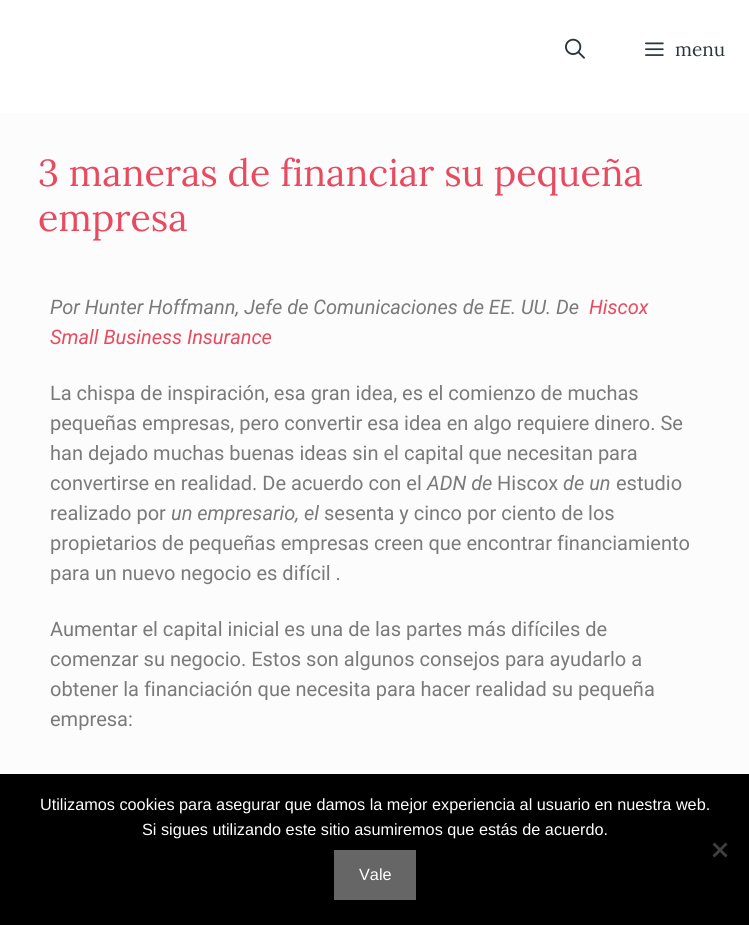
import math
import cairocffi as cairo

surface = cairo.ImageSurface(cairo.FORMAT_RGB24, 749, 925)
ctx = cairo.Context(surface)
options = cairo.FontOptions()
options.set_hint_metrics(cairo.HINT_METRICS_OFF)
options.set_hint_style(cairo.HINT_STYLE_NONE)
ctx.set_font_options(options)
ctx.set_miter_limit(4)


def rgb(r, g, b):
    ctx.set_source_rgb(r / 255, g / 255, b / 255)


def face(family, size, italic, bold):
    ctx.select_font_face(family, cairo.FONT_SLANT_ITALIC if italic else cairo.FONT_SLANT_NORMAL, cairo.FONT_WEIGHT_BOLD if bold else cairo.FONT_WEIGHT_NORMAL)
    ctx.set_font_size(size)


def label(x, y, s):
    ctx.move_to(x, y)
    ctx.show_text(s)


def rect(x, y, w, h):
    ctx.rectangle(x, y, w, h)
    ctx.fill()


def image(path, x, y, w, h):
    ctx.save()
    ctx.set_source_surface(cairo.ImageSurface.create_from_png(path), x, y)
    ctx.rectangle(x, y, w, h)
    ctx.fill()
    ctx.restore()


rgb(255, 255, 255)
ctx.paint()
image('image0.png', 565, 38, 20, 21)
image('image1.png', 645, 42, 19, 14)
face('Lora', 19, 0, 0)
rgb(42, 54, 59)
label(675, 56, 'menu')
rgb(252, 252, 252)
rect(0, 113, 749, 661)
face('Lora', 37.5, 0, 0)
rgb(232, 74, 95)
label(38, 186, '3 maneras de financiar su pequeña')
label(38, 231, 'empresa')
face('Roboto', 20, 1, 0)
rgb(122, 122, 122)
label(50, 314, 'Por Hunter Hoffmann, Jefe de Comunicaciones de EE. UU. De')
rgb(232, 74, 95)
label(589, 314, 'Hiscox')
label(50, 344, 'Small Business Insurance')
face('Roboto', 20, 0, 0)
rgb(122, 122, 122)
label(50, 400, 'La chispa de inspiración, esa gran idea, es el comienzo de muchas')
label(50, 430, 'pequeñas empresas, pero convertir esa idea en algo requiere dinero. Se')
label(50, 460, 'han dejado muchas buenas ideas sin el capital que necesitan para')
label(50, 490, 'convertirse en realidad. De acuerdo con el')
face('Roboto', 20, 1, 0)
label(427, 490, 'ADN de')
face('Roboto', 20, 0, 0)
label(497, 490, 'Hiscox')
face('Roboto', 20, 1, 0)
label(563, 490, 'de un')
face('Roboto', 20, 0, 0)
label(616, 490, 'estudio')
label(50, 520, 'realizado por')
face('Roboto', 20, 1, 0)
label(171, 520, 'un empresario, el')
face('Roboto', 20, 0, 0)
label(324, 520, 'sesenta y cinco por ciento de los')
label(50, 550, 'propietarios de pequeñas empresas creen que encontrar financiamiento')
label(50, 580, 'para un nuevo negocio es difícil .')
label(50, 636, 'Aumentar el capital inicial es una de las partes más difíciles de')
label(50, 666, 'comenzar su negocio. Estos son algunos consejos para ayudarlo a')
label(50, 696, 'obtener la financiación que necesita para hacer realidad su pequeña')
label(50, 726, 'empresa:')
rgb(0, 0, 0)
rect(0, 774, 749, 151)
face('Liberation Sans', 16.25, 0, 0)
rgb(255, 255, 255)
label(40, 810, 'Utilizamos cookies para asegurar que damos la mejor experiencia al usuario en nuestra web.')
label(142, 835, 'Si sigues utilizando este sitio asumiremos que estás de acuerdo.')
rgb(64, 64, 64)
ctx.new_path()
ctx.move_to(725.5, 842.5)
ctx.line_to(727.5, 844.5)
ctx.line_to(714.5, 857.5)
ctx.line_to(712.5, 855.5)
ctx.close_path()
ctx.fill()
ctx.new_path()
ctx.move_to(712.5, 844.5)
ctx.line_to(714.5, 842.5)
ctx.line_to(727.5, 855.5)
ctx.line_to(725.5, 857.5)
ctx.close_path()
ctx.fill()
rgb(102, 102, 102)
rect(334, 850, 82, 50)
rgb(255, 255, 255)
label(359, 880, 'Vale')
surface.write_to_png('render.png')
